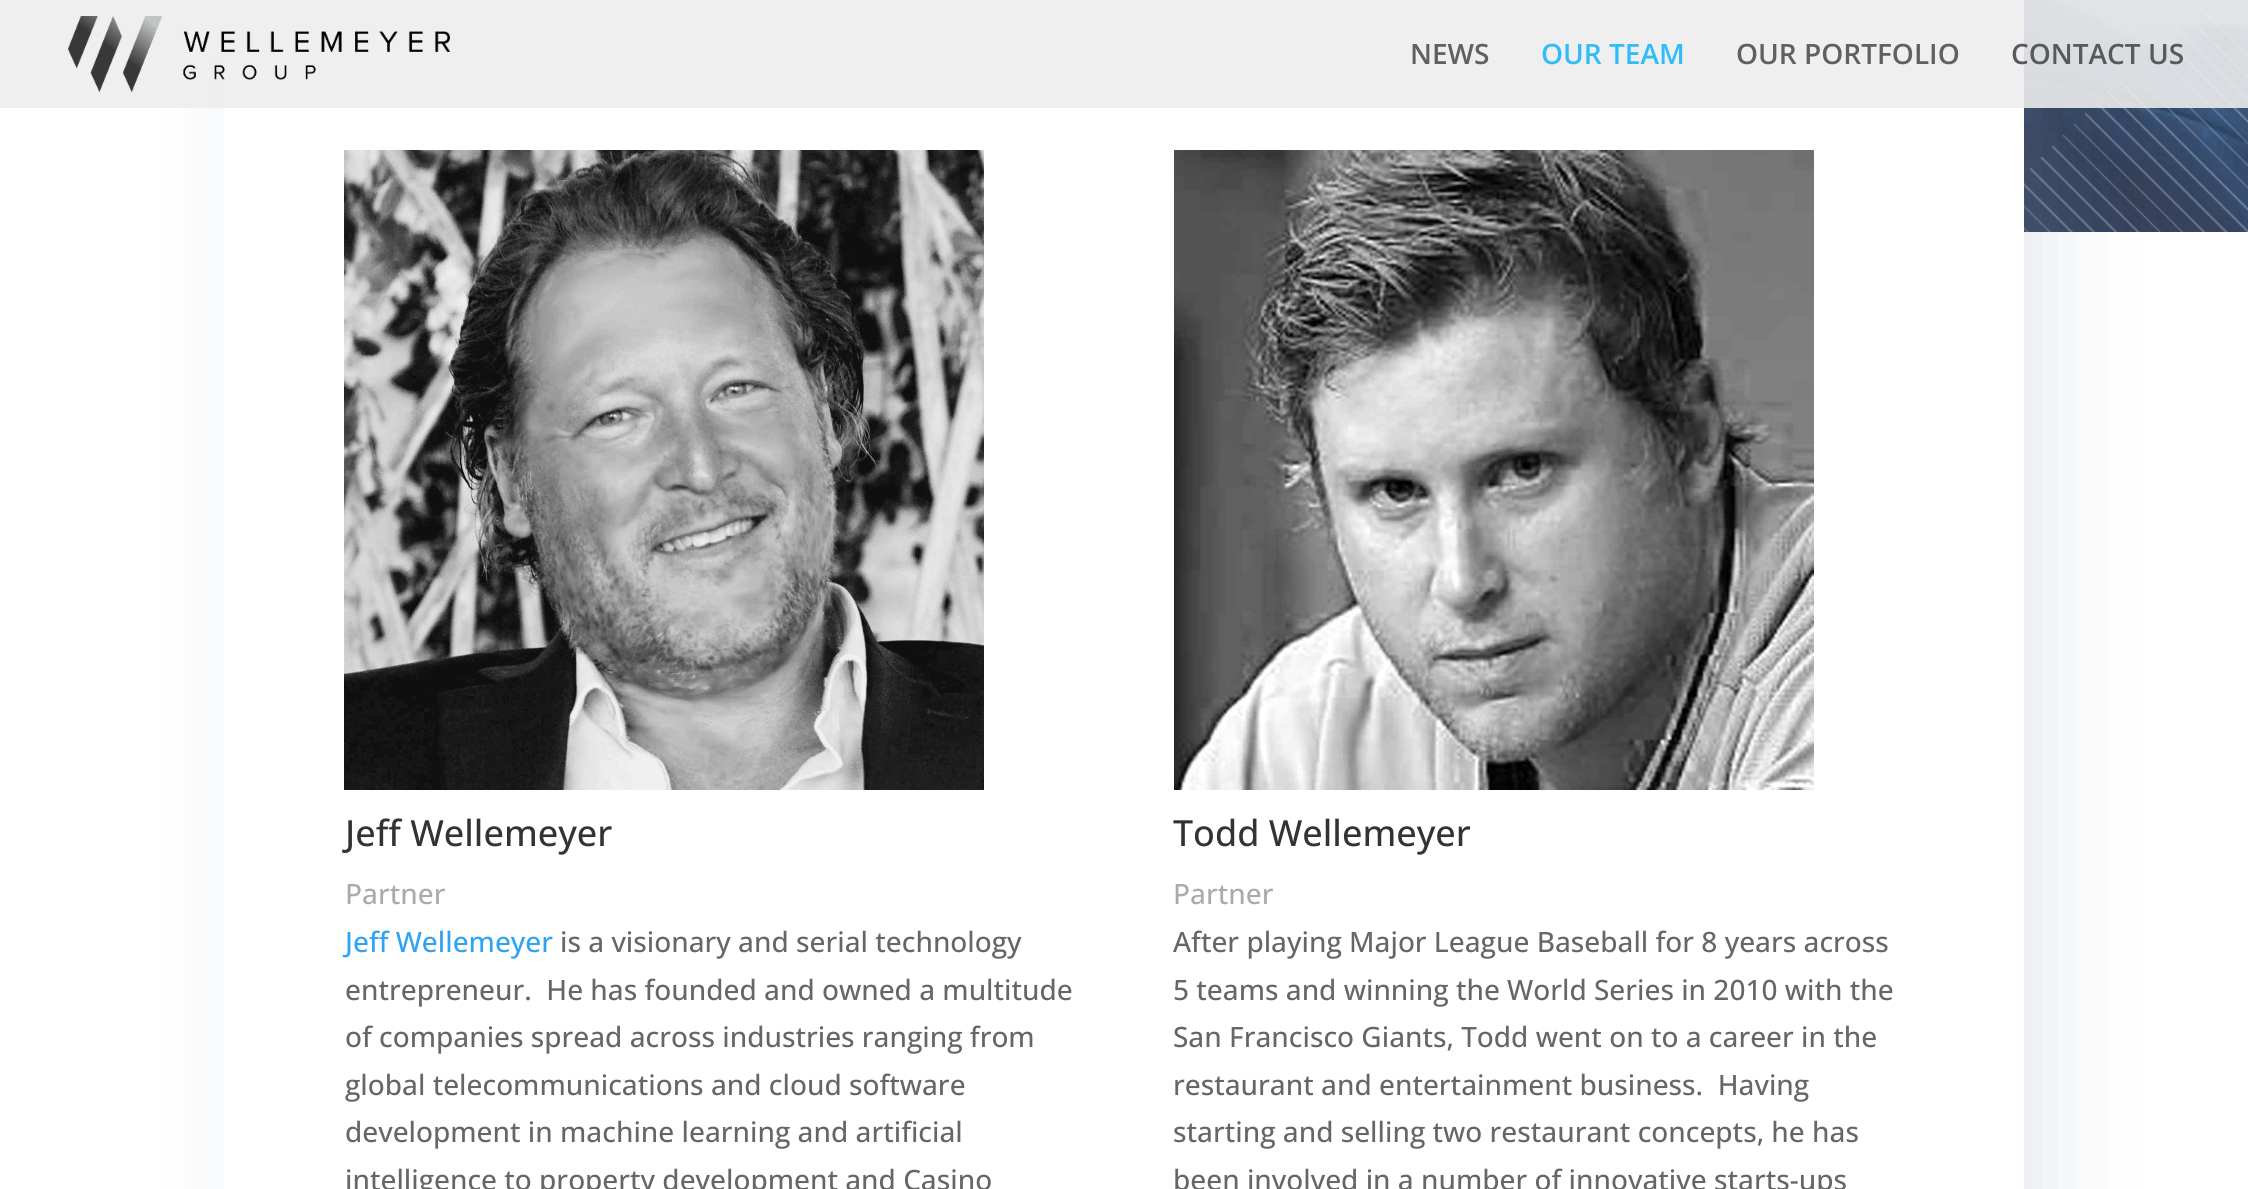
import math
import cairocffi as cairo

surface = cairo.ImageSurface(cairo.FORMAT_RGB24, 2248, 1189)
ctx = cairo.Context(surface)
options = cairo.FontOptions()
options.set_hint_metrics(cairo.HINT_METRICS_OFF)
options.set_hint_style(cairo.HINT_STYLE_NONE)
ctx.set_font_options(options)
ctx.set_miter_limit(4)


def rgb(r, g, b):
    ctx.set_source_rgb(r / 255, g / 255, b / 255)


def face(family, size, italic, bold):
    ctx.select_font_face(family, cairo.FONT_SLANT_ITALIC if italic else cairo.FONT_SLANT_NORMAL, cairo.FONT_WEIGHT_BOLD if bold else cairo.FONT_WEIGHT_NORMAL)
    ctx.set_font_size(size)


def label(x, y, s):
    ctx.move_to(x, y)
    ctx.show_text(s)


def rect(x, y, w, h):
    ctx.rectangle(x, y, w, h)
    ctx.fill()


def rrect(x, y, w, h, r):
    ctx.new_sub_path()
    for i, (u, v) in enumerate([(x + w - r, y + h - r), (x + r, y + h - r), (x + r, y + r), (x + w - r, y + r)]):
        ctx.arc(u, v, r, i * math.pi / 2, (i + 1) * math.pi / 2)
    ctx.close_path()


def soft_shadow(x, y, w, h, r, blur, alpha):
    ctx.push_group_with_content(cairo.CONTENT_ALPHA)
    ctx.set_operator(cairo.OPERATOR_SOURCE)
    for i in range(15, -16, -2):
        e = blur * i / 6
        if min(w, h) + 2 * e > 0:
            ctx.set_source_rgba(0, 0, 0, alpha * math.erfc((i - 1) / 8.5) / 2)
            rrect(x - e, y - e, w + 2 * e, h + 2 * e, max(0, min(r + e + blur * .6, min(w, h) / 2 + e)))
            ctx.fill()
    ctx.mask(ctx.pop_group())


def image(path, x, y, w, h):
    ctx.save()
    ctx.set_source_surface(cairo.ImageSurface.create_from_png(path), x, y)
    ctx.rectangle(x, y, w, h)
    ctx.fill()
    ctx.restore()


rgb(255, 255, 255)
ctx.paint()
image('image2.png', 2024, 0, 224, 232)
image('image1.png', 0, 0, 2248, 232)
rgb(133, 143, 175)
soft_shadow(250, 62, 1800, 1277, 0, 50, 0.2)
rgb(255, 255, 255)
rect(224, 0, 1800, 1189)
ctx.set_source_rgba(0.929, 0.929, 0.929, 0.89)
rect(0, 0, 2248, 108)
image('image0.png', 68, 16, 382, 76)
face('Open Sans SemiBold', 28, 0, 0)
rgb(96, 96, 96)
label(1410, 64, 'NEWS')
rgb(47, 189, 249)
label(1541, 64, 'OUR TEAM')
rgb(96, 96, 96)
label(1736, 64, 'OUR PORTFOLIO')
rgb(88, 89, 90)
label(2011, 64, 'CONTACT US')
image('image3.png', 344, 150, 640, 640)
face('Open Sans Medium', 36, 0, 0)
rgb(51, 51, 51)
label(345, 846, 'Jeff Wellemeyer')
face('Open Sans Medium', 28, 0, 0)
rgb(170, 170, 170)
label(345, 904, 'Partner')
rgb(46, 163, 242)
label(345, 952, 'Jeff Wellemeyer')
rgb(102, 102, 102)
label(560, 952, 'is a visionary and serial technology')
label(345, 1000, 'entrepreneur.  He has founded and owned a multitude')
label(345, 1047, 'of companies spread across industries ranging from')
label(345, 1095, 'global telecommunications and cloud software')
label(345, 1142, 'development in machine learning and artificial')
label(345, 1190, 'intelligence to property development and Casino')
image('image4.png', 1174, 150, 640, 640)
face('Open Sans Medium', 36, 0, 0)
rgb(51, 51, 51)
label(1173, 846, 'Todd Wellemeyer')
face('Open Sans Medium', 28, 0, 0)
rgb(170, 170, 170)
label(1173, 904, 'Partner')
rgb(102, 102, 102)
label(1173, 952, 'After playing Major League Baseball for 8 years across')
label(1173, 1000, '5 teams and winning the World Series in 2010 with the')
label(1173, 1047, 'San Francisco Giants, Todd went on to a career in the')
label(1173, 1095, 'restaurant and entertainment business.  Having')
label(1173, 1142, 'starting and selling two restaurant concepts, he has')
label(1173, 1190, 'been involved in a number of innovative starts-ups')
surface.write_to_png('render.png')
